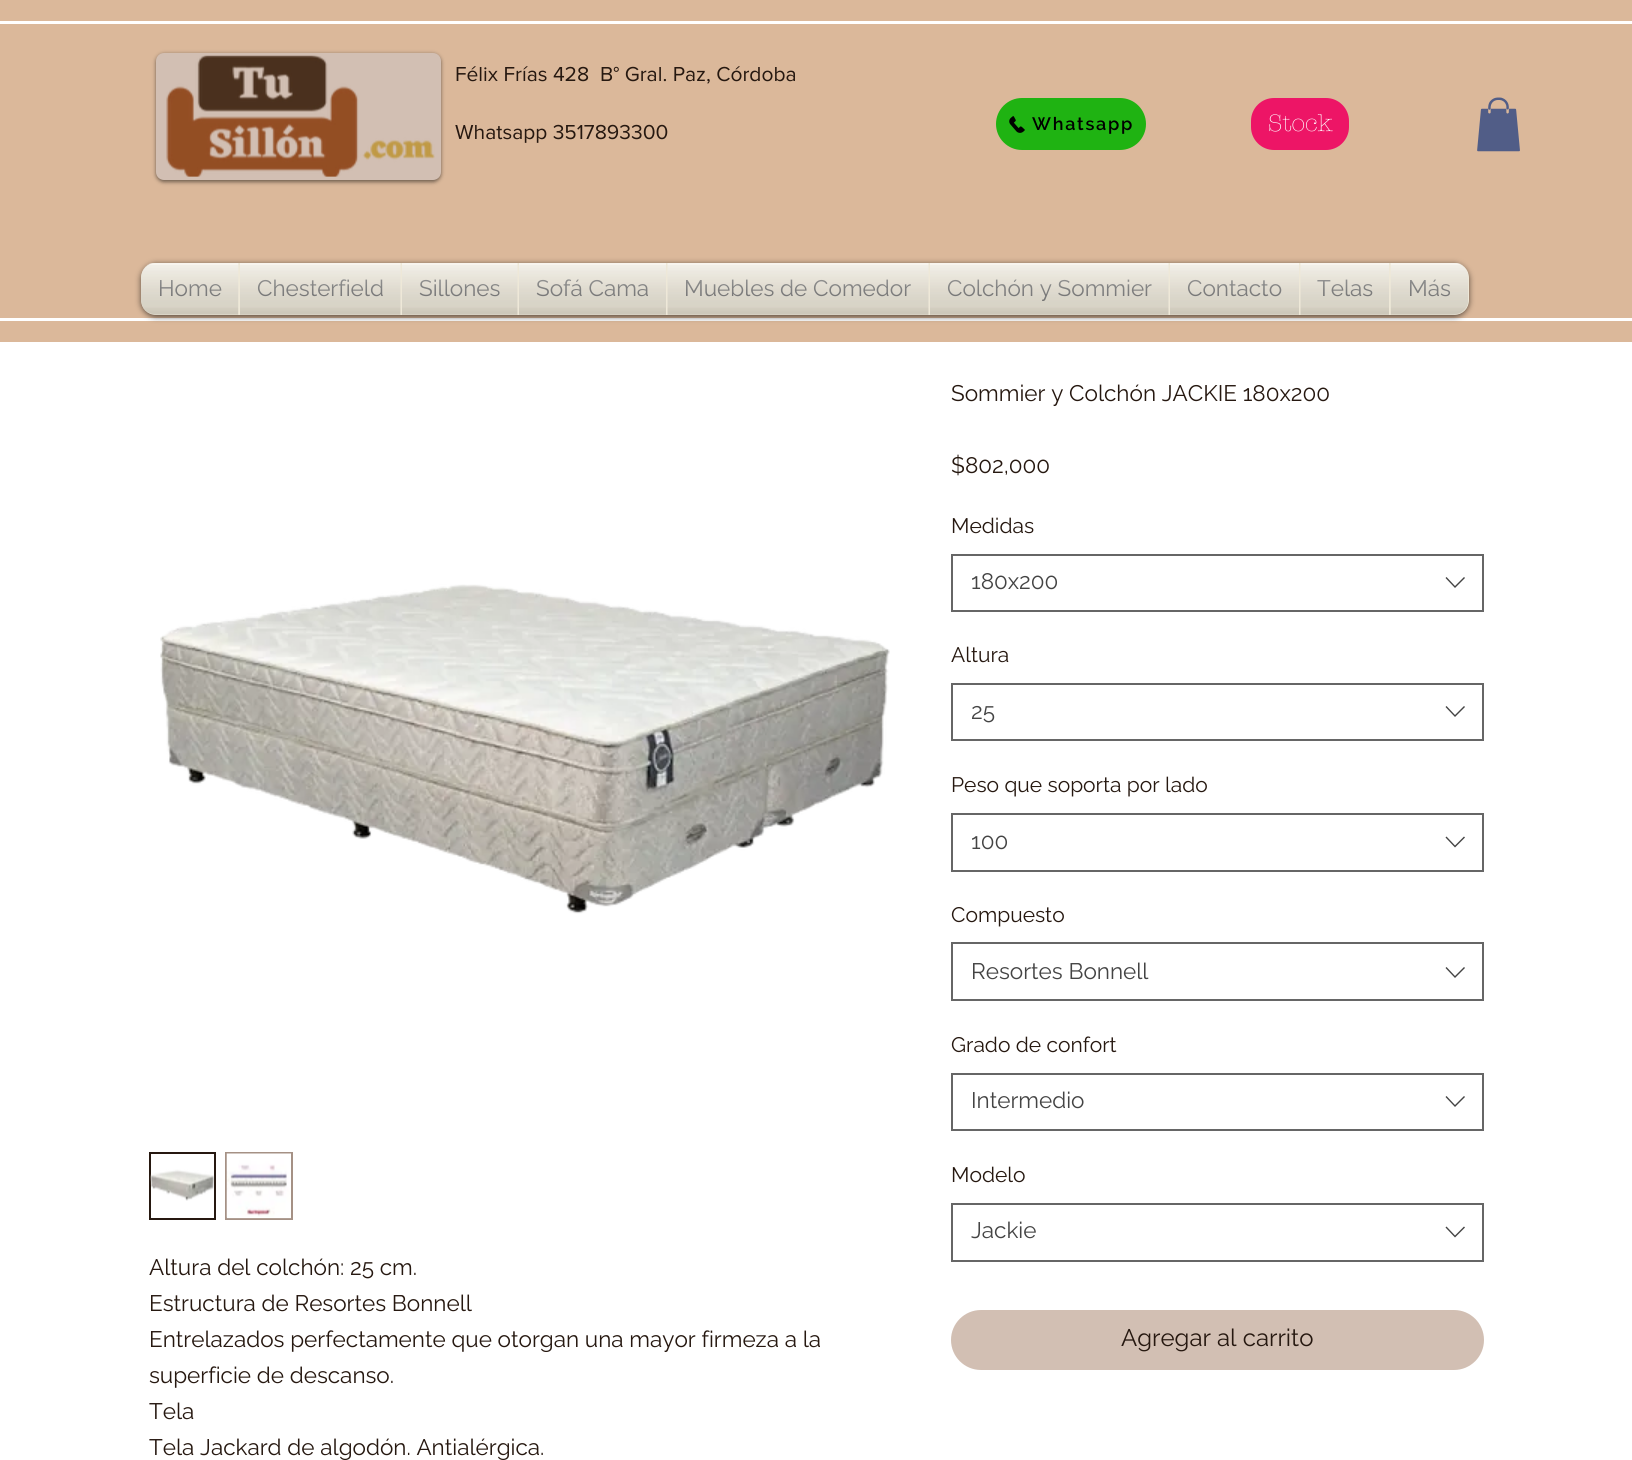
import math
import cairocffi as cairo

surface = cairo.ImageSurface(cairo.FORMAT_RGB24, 1632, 1460)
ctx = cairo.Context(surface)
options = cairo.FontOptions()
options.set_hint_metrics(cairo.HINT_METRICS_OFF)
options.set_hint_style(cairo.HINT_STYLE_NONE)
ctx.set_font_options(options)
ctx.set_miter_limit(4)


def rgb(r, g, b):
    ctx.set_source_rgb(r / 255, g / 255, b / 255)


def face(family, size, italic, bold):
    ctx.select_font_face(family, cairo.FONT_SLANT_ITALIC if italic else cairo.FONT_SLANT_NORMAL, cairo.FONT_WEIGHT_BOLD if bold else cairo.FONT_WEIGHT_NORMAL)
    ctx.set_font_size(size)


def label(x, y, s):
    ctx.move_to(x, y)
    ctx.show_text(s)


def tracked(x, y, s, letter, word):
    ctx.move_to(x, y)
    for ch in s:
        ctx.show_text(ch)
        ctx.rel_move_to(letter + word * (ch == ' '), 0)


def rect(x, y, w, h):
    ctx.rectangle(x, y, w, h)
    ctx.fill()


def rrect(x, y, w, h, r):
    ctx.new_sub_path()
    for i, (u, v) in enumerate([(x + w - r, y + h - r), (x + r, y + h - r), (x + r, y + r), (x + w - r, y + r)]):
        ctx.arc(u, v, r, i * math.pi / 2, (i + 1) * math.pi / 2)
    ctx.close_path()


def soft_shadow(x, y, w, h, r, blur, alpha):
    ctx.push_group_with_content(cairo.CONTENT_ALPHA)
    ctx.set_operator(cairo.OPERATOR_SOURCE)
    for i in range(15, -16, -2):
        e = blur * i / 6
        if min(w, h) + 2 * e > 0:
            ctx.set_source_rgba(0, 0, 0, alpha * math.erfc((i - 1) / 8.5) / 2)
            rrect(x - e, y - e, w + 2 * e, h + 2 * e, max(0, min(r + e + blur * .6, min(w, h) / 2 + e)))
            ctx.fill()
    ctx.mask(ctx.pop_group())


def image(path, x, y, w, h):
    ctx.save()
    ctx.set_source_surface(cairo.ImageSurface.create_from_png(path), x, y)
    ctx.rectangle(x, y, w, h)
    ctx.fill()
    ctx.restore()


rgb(255, 255, 255)
ctx.paint()
rgb(219, 184, 154)
rect(0, 0, 1632, 342)
rgb(255, 255, 255)
rect(0, 21, 1632, 3)
rect(0, 318, 1632, 3)
rgb(0, 0, 0)
soft_shadow(156, 54, 285, 128, 8, 2, 0.5)
rgb(210, 191, 179)
rrect(157.5, 54.5, 282, 124, 6.5)
ctx.fill_preserve()
ctx.set_line_width(3)
ctx.stroke()
image('image0.png', 166, 55, 269, 122)
face('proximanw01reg', 21, 0, 0)
rgb(38, 24, 16)
label(455, 81, 'Félix Frías 428')
label(600, 81, 'B° Gral. Paz, Córdoba')
label(455, 139, 'Whatsapp 3517893300')
rgb(31, 179, 18)
rrect(996, 98, 150, 52, 26)
ctx.fill()
image('image1.png', 1009, 116, 16, 17)
face('Raleway SemiBold', 18, 0, 0)
rgb(0, 0, 0)
tracked(1032, 130, 'Whatsapp', 1.75, 0)
rgb(237, 21, 102)
rrect(1251, 98, 98, 52, 23)
ctx.fill()
face('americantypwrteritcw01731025 Light', 24, 0, 0)
rgb(255, 255, 255)
label(1268, 131, 'Stock')
image('image2.png', 1477, 97, 43, 55)
rgb(0, 0, 0)
soft_shadow(141, 264, 1328, 53, 15, 3, 0.6)
image('image3.png', 141, 263, 1327, 46)
image('image4.png', 141, 270, 1321, 45)
rgb(238, 232, 216)
ctx.new_path()
ctx.move_to(156, 263)
ctx.line_to(239, 263)
ctx.line_to(239, 315)
ctx.line_to(156, 315)
ctx.curve_to(147.5, 315, 141, 308.5, 141, 300)
ctx.line_to(141, 278)
ctx.curve_to(141, 269.5, 147.5, 263, 156, 263)
ctx.close_path()
ctx.fill()
face('Raleway', 22.5, 0, 0)
rgb(105, 105, 105)
label(158, 296, 'Home')
image('image5.png', 141, 263, 98, 45)
image('image6.png', 141, 265, 98, 50)
rgb(238, 232, 216)
rect(239, 263, 1150, 52)
rgb(105, 105, 105)
label(257, 296, 'Chesterfield')
image('image7.png', 240, 263, 161, 45)
image('image8.png', 240, 265, 161, 50)
label(419, 296, 'Sillones')
image('image9.png', 402, 263, 116, 45)
image('image10.png', 402, 265, 116, 50)
label(536, 296, 'Sofá Cama')
image('image11.png', 519, 263, 147, 45)
image('image12.png', 519, 265, 147, 50)
label(684, 296, 'Muebles de Comedor')
image('image13.png', 667, 263, 262, 45)
image('image14.png', 667, 265, 262, 50)
label(947, 296, 'Colchón y Sommier')
image('image15.png', 930, 263, 239, 45)
image('image16.png', 930, 265, 239, 50)
label(1187, 296, 'Contacto')
image('image17.png', 1170, 263, 129, 45)
image('image18.png', 1170, 265, 129, 50)
label(1317, 296, 'Telas')
image('image19.png', 1300, 263, 89, 45)
image('image20.png', 1300, 265, 89, 50)
rgb(238, 232, 216)
ctx.new_path()
ctx.move_to(1389, 263)
ctx.line_to(1454, 263)
ctx.curve_to(1462.5, 263, 1469, 269.5, 1469, 278)
ctx.line_to(1469, 300)
ctx.curve_to(1469, 308.5, 1462.5, 315, 1454, 315)
ctx.line_to(1389, 315)
ctx.close_path()
ctx.fill()
rgb(105, 105, 105)
label(1408, 296, 'Más')
image('image21.png', 1390, 263, 78, 45)
image('image22.png', 1390, 265, 78, 50)
image('image23.png', 160, 584, 730, 330)
ctx.rectangle(150, 1153, 65, 66)
rgb(38, 24, 16)
ctx.set_line_width(2)
ctx.stroke()
image('image24.png', 150, 1169, 65, 32)
ctx.rectangle(226, 1153, 66, 66)
rgb(165, 145, 133)
ctx.stroke()
image('image25.png', 226, 1153, 65, 66)
rgb(38, 24, 16)
label(149, 1275, 'Altura del colchón: 25 cm.')
label(149, 1311, 'Estructura de Resortes Bonnell')
label(149, 1347, 'Entrelazados perfectamente que otorgan una mayor firmeza a la')
label(149, 1383, 'superficie de descanso.')
label(149, 1419, 'Tela')
label(149, 1455, 'Tela Jackard de algodón. Antialérgica.')
label(951, 401, 'Sommier y Colchón JACKIE 180x200')
label(951, 473, '$802,000')
face('Raleway', 21, 0, 0)
label(951, 533, 'Medidas')
ctx.rectangle(952, 555, 531, 56)
rgb(102, 102, 102)
ctx.stroke()
face('Raleway', 22.5, 0, 0)
rgb(68, 68, 68)
label(971, 589, '180x200')
ctx.set_fill_rule(cairo.FILL_RULE_EVEN_ODD)
ctx.new_path()
ctx.move_to(1464, 577)
ctx.line_to(1465, 578)
ctx.line_to(1455, 588)
ctx.line_to(1445.5, 578)
ctx.line_to(1446.5, 577)
ctx.line_to(1455, 586)
ctx.close_path()
ctx.fill()
face('Raleway', 21, 0, 0)
rgb(38, 24, 16)
label(951, 662, 'Altura')
ctx.rectangle(952, 684, 531, 56)
rgb(102, 102, 102)
ctx.stroke()
face('Raleway', 22.5, 0, 0)
rgb(68, 68, 68)
label(971, 719, '25')
ctx.new_path()
ctx.move_to(1464, 706)
ctx.line_to(1465, 707)
ctx.line_to(1455, 717)
ctx.line_to(1445.5, 707)
ctx.line_to(1446.5, 706)
ctx.line_to(1455, 715)
ctx.close_path()
ctx.fill()
face('Raleway', 21, 0, 0)
rgb(38, 24, 16)
label(951, 792, 'Peso que soporta por lado')
ctx.rectangle(952, 814, 531, 57)
rgb(102, 102, 102)
ctx.stroke()
face('Raleway', 22.5, 0, 0)
rgb(68, 68, 68)
label(971, 849, '100')
ctx.new_path()
ctx.move_to(1464, 836.5)
ctx.line_to(1465, 837.5)
ctx.line_to(1455, 847.5)
ctx.line_to(1445.5, 837.5)
ctx.line_to(1446.5, 836.5)
ctx.line_to(1455, 845.5)
ctx.close_path()
ctx.fill()
face('Raleway', 21, 0, 0)
rgb(38, 24, 16)
label(951, 922, 'Compuesto')
ctx.rectangle(952, 943, 531, 57)
rgb(102, 102, 102)
ctx.stroke()
face('Raleway', 22.5, 0, 0)
rgb(68, 68, 68)
label(971, 979, 'Resortes Bonnell')
ctx.new_path()
ctx.move_to(1464, 967)
ctx.line_to(1465, 968)
ctx.line_to(1455, 978)
ctx.line_to(1445.5, 968)
ctx.line_to(1446.5, 967)
ctx.line_to(1455, 976)
ctx.close_path()
ctx.fill()
face('Raleway', 21, 0, 0)
rgb(38, 24, 16)
label(951, 1052, 'Grado de confort')
ctx.rectangle(952, 1074, 531, 56)
rgb(102, 102, 102)
ctx.stroke()
face('Raleway', 22.5, 0, 0)
rgb(68, 68, 68)
label(971, 1108, 'Intermedio')
ctx.new_path()
ctx.move_to(1464, 1096)
ctx.line_to(1465, 1097)
ctx.line_to(1455, 1107)
ctx.line_to(1445.5, 1097)
ctx.line_to(1446.5, 1096)
ctx.line_to(1455, 1105)
ctx.close_path()
ctx.fill()
face('Raleway', 21, 0, 0)
rgb(38, 24, 16)
label(951, 1182, 'Modelo')
ctx.rectangle(952, 1204, 531, 57)
rgb(102, 102, 102)
ctx.stroke()
face('Raleway', 22.5, 0, 0)
rgb(68, 68, 68)
label(971, 1238, 'Jackie')
ctx.new_path()
ctx.move_to(1464, 1226.5)
ctx.line_to(1465, 1227.5)
ctx.line_to(1455, 1237.5)
ctx.line_to(1445.5, 1227.5)
ctx.line_to(1446.5, 1226.5)
ctx.line_to(1455, 1235.5)
ctx.close_path()
ctx.fill()
rgb(210, 191, 179)
rrect(951, 1310, 533, 60, 30)
ctx.fill()
face('Raleway', 24, 0, 0)
rgb(38, 24, 16)
label(1121, 1346, 'Agregar al carrito')
surface.write_to_png('render.png')
